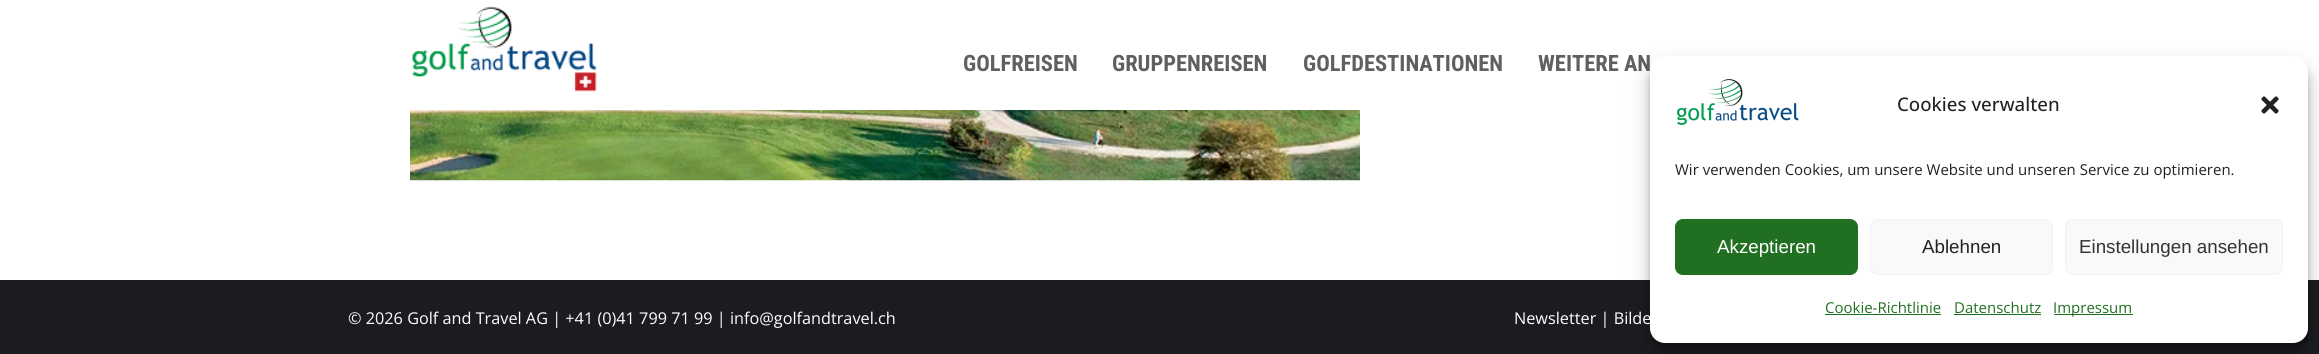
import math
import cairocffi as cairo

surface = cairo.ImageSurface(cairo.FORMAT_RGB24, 2319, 354)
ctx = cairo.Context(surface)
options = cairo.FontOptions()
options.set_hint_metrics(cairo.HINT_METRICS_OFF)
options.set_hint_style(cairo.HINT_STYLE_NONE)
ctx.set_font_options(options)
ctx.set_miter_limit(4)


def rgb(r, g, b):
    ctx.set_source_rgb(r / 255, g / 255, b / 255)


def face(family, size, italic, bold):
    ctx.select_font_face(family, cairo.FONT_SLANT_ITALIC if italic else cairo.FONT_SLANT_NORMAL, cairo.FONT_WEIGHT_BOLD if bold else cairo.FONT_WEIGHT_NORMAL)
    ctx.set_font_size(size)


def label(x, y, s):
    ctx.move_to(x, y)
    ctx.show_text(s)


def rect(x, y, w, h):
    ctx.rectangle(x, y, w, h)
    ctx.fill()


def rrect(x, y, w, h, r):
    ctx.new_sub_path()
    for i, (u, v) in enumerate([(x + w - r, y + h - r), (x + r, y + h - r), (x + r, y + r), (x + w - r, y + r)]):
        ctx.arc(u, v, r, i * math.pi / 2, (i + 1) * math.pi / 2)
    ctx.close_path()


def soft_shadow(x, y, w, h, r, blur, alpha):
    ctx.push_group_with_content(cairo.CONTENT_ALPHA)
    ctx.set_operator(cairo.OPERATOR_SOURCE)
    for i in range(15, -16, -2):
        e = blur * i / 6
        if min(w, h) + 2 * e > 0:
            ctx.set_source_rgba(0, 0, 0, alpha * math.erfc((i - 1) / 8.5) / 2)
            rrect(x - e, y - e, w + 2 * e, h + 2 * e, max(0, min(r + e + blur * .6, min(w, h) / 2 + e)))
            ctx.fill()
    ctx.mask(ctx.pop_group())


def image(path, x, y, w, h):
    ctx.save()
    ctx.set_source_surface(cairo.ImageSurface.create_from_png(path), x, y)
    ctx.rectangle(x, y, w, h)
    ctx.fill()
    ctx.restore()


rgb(26, 28, 32)
ctx.paint()
rgb(255, 255, 255)
rect(0, 0, 2319, 280)
image('image0.png', 411, 6, 186, 86)
face('Roboto Condensed', 22.5, 0, 1)
rgb(96, 96, 96)
label(963, 71, 'GOLFREISEN')
label(1112, 71, 'GRUPPENREISEN')
label(1303, 71, 'GOLFDESTINATIONEN')
label(1538, 71, 'WEITERE AN')
rgb(21, 22, 26)
rect(2293, 328, 15, 15)
rgb(0, 0, 0)
soft_shadow(1650, 64, 658, 286, 15, 4, 0.23)
soft_shadow(1650, 69, 658, 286, 15, 12.5, 0.19)
rgb(255, 255, 255)
rrect(1650, 56, 658, 287, 15)
ctx.fill()
image('image1.png', 1677, 79, 122, 46)
face('Open Sans Medium', 18.75, 0, 0)
rgb(34, 34, 34)
label(1897, 111, 'Cookies verwalten')
image('image2.png', 2261, 96, 18, 18)
face('Open Sans', 15, 0, 0)
label(1675, 175, 'Wir verwenden Cookies, um unsere Website und unseren Service zu optimieren.')
rgb(33, 112, 33)
rrect(1675.5, 219.5, 182, 55, 7.5)
ctx.fill_preserve()
ctx.set_line_width(1)
ctx.stroke()
face('Liberation Sans', 18.75, 0, 0)
rgb(255, 255, 255)
label(1717, 253, 'Akzeptieren')
rgb(249, 249, 249)
rrect(1870.5, 219.5, 182, 55, 7.5)
ctx.fill_preserve()
rgb(242, 242, 242)
ctx.stroke()
rgb(34, 34, 34)
label(1922, 253, 'Ablehnen')
rgb(249, 249, 249)
rrect(2065.5, 219.5, 217, 55, 7.5)
ctx.fill_preserve()
rgb(242, 242, 242)
ctx.stroke()
rgb(51, 51, 51)
label(2079, 253, 'Einstellungen ansehen')
face('Open Sans', 15, 0, 0)
rgb(33, 112, 33)
label(1825, 313, 'Cookie-Richtlinie')
rect(1825, 314, 116, 1)
label(1954, 313, 'Datenschutz')
rect(1954, 314, 87, 1)
rect(2054, 314, 79, 1)
label(2053, 313, 'Impressum')
image('image3.png', 410, 110, 950, 71)
face('Open Sans', 16.25, 0, 0)
rgb(255, 255, 255)
label(348, 324, '© 2026 Golf and Travel AG | +41 (0)41 799 71 99 | info@golfandtravel.ch')
label(1514, 324, 'Newsletter | Bilde')
surface.write_to_png('render.png')
